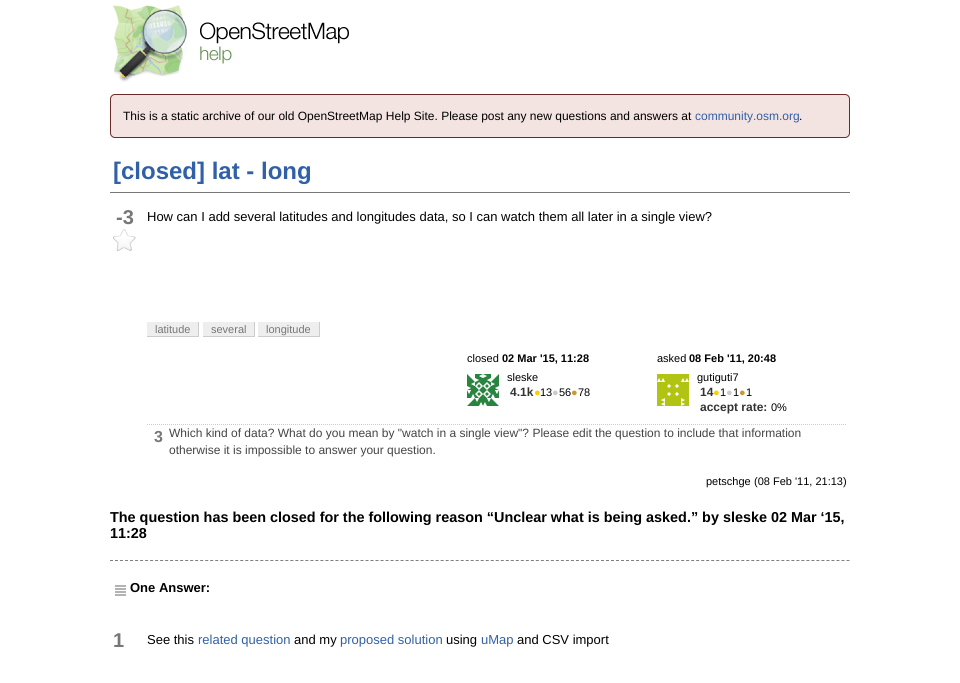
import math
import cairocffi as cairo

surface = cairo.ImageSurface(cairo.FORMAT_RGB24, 960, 683)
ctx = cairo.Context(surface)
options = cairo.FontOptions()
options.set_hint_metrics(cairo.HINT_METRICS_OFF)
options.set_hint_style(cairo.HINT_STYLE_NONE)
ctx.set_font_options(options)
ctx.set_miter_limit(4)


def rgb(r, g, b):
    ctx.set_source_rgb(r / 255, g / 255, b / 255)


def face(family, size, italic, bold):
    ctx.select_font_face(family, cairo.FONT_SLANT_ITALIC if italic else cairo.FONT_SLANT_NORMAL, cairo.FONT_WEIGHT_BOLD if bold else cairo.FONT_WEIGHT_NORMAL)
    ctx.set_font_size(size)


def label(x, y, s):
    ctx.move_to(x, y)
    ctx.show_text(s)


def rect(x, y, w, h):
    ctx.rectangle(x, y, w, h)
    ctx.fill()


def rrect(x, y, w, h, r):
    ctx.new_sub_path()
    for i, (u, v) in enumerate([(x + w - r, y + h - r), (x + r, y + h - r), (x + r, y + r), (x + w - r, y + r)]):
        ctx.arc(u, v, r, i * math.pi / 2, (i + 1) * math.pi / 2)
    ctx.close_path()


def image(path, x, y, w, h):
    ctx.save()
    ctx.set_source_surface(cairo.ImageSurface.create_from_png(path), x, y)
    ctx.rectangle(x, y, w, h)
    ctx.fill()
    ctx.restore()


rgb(255, 255, 255)
ctx.paint()
image('image0.png', 113, 5, 236, 77)
rgb(243, 227, 225)
rrect(110.5, 94.5, 739, 43, 4.5)
ctx.fill_preserve()
rgb(107, 43, 40)
ctx.set_line_width(1)
ctx.stroke()
face('Liberation Sans', 12, 0, 0)
rgb(0, 0, 0)
label(123, 120, 'This is a static archive of our old OpenStreetMap Help Site. Please post any new questions and answers at')
rgb(48, 96, 168)
label(695, 120, 'community.osm.org')
rgb(0, 0, 0)
label(799, 120, '.')
rgb(119, 119, 119)
rect(110, 192, 740, 1)
face('Liberation Sans', 24, 0, 1)
rgb(48, 96, 168)
label(113, 179, '[closed] lat - long')
face('Liberation Sans', 20, 0, 1)
rgb(119, 119, 119)
label(116, 224, '-3')
image('image1.png', 113, 229, 23, 22)
face('Liberation Sans', 13, 0, 0)
rgb(0, 0, 0)
label(147, 221, 'How can I add several latitudes and longitudes data, so I can watch them all later in a single view?')
rgb(238, 238, 238)
rect(147, 322, 51, 14)
face('Liberation Sans', 11, 0, 0)
rgb(119, 119, 119)
label(155, 333, 'latitude')
rgb(204, 204, 204)
rect(198, 322, 1, 15)
rect(147, 336, 52, 1)
rgb(238, 238, 238)
rect(203, 322, 51, 14)
rgb(119, 119, 119)
label(211, 333, 'several')
rgb(204, 204, 204)
rect(254, 322, 1, 15)
rect(203, 336, 52, 1)
rgb(238, 238, 238)
rect(258, 322, 61, 14)
rgb(119, 119, 119)
label(266, 333, 'longitude')
rgb(204, 204, 204)
rect(319, 322, 1, 15)
rect(258, 336, 62, 1)
rgb(0, 0, 0)
label(467, 362, 'closed')
face('Liberation Sans', 11, 0, 1)
label(502, 362, '02 Mar \'15, 11:28')
image('image2.png', 467, 374, 32, 32)
face('Liberation Sans', 11, 0, 0)
label(507, 381, 'sleske')
face('Liberation Sans', 12, 0, 1)
rgb(51, 51, 51)
label(510, 396, '4.1k')
face('Liberation Sans', 11, 0, 0)
rgb(255, 204, 0)
label(534, 396, '●')
rgb(0, 0, 0)
label(540, 396, '13')
rgb(204, 204, 204)
label(552, 396, '●')
rgb(0, 0, 0)
label(559, 396, '56')
rgb(204, 153, 51)
label(571, 396, '●')
rgb(0, 0, 0)
label(578, 396, '78')
label(657, 362, 'asked')
face('Liberation Sans', 11, 0, 1)
label(689, 362, '08 Feb \'11, 20:48')
image('image3.png', 657, 374, 32, 32)
face('Liberation Sans', 11, 0, 0)
label(697, 381, 'gutiguti7')
face('Liberation Sans', 12, 0, 1)
rgb(51, 51, 51)
label(700, 396, '14')
face('Liberation Sans', 11, 0, 0)
rgb(255, 204, 0)
label(713, 396, '●')
rgb(0, 0, 0)
label(720, 396, '1')
rgb(204, 204, 204)
label(726, 396, '●')
rgb(0, 0, 0)
label(733, 396, '1')
rgb(204, 153, 51)
label(739, 396, '●')
rgb(0, 0, 0)
label(746, 396, '1')
face('Liberation Sans', 12, 0, 1)
rgb(51, 51, 51)
label(700, 411, 'accept rate:')
face('Liberation Sans', 11, 0, 0)
rgb(0, 0, 0)
label(771, 411, '0%')
ctx.new_path()
ctx.move_to(147, 424.5)
ctx.line_to(847, 424.5)
rgb(204, 204, 206)
ctx.set_dash([1, 1])
ctx.stroke()
face('Liberation Sans', 16, 0, 1)
rgb(119, 119, 119)
label(154, 442, '3')
face('Liberation Sans', 12, 0, 0)
rgb(68, 68, 68)
label(169, 437, 'Which kind of data? What do you mean by "watch in a single view"? Please edit the question to include that information')
label(169, 454, 'otherwise it is impossible to answer your question.')
face('Liberation Sans', 11, 0, 0)
rgb(0, 0, 0)
label(706, 485, 'petschge')
label(754, 485, '(08 Feb \'11, 21:13)')
face('Liberation Sans', 14.4, 0, 1)
label(110, 522, 'The question has been closed for the following reason “Unclear what is being asked.” by sleske 02 Mar ‘15,')
label(110, 538, '11:28')
ctx.new_path()
ctx.move_to(110, 560.5)
ctx.line_to(850, 560.5)
rgb(128, 128, 128)
ctx.set_dash([3, 2.01])
ctx.stroke()
image('image4.png', 115, 585, 11, 11)
face('Liberation Sans', 13, 0, 1)
rgb(0, 0, 0)
label(130, 592, 'One Answer:')
face('Liberation Sans', 20, 0, 1)
rgb(119, 119, 119)
label(113, 647, '1')
face('Liberation Sans', 13, 0, 0)
rgb(0, 0, 0)
label(147, 644, 'See this')
rgb(48, 96, 168)
label(198, 644, 'related question')
rgb(0, 0, 0)
label(294, 644, 'and my')
rgb(48, 96, 168)
label(340, 644, 'proposed solution')
rgb(0, 0, 0)
label(446, 644, 'using')
rgb(48, 96, 168)
label(481, 644, 'uMap')
rgb(0, 0, 0)
label(517, 644, 'and CSV import')
surface.write_to_png('render.png')
